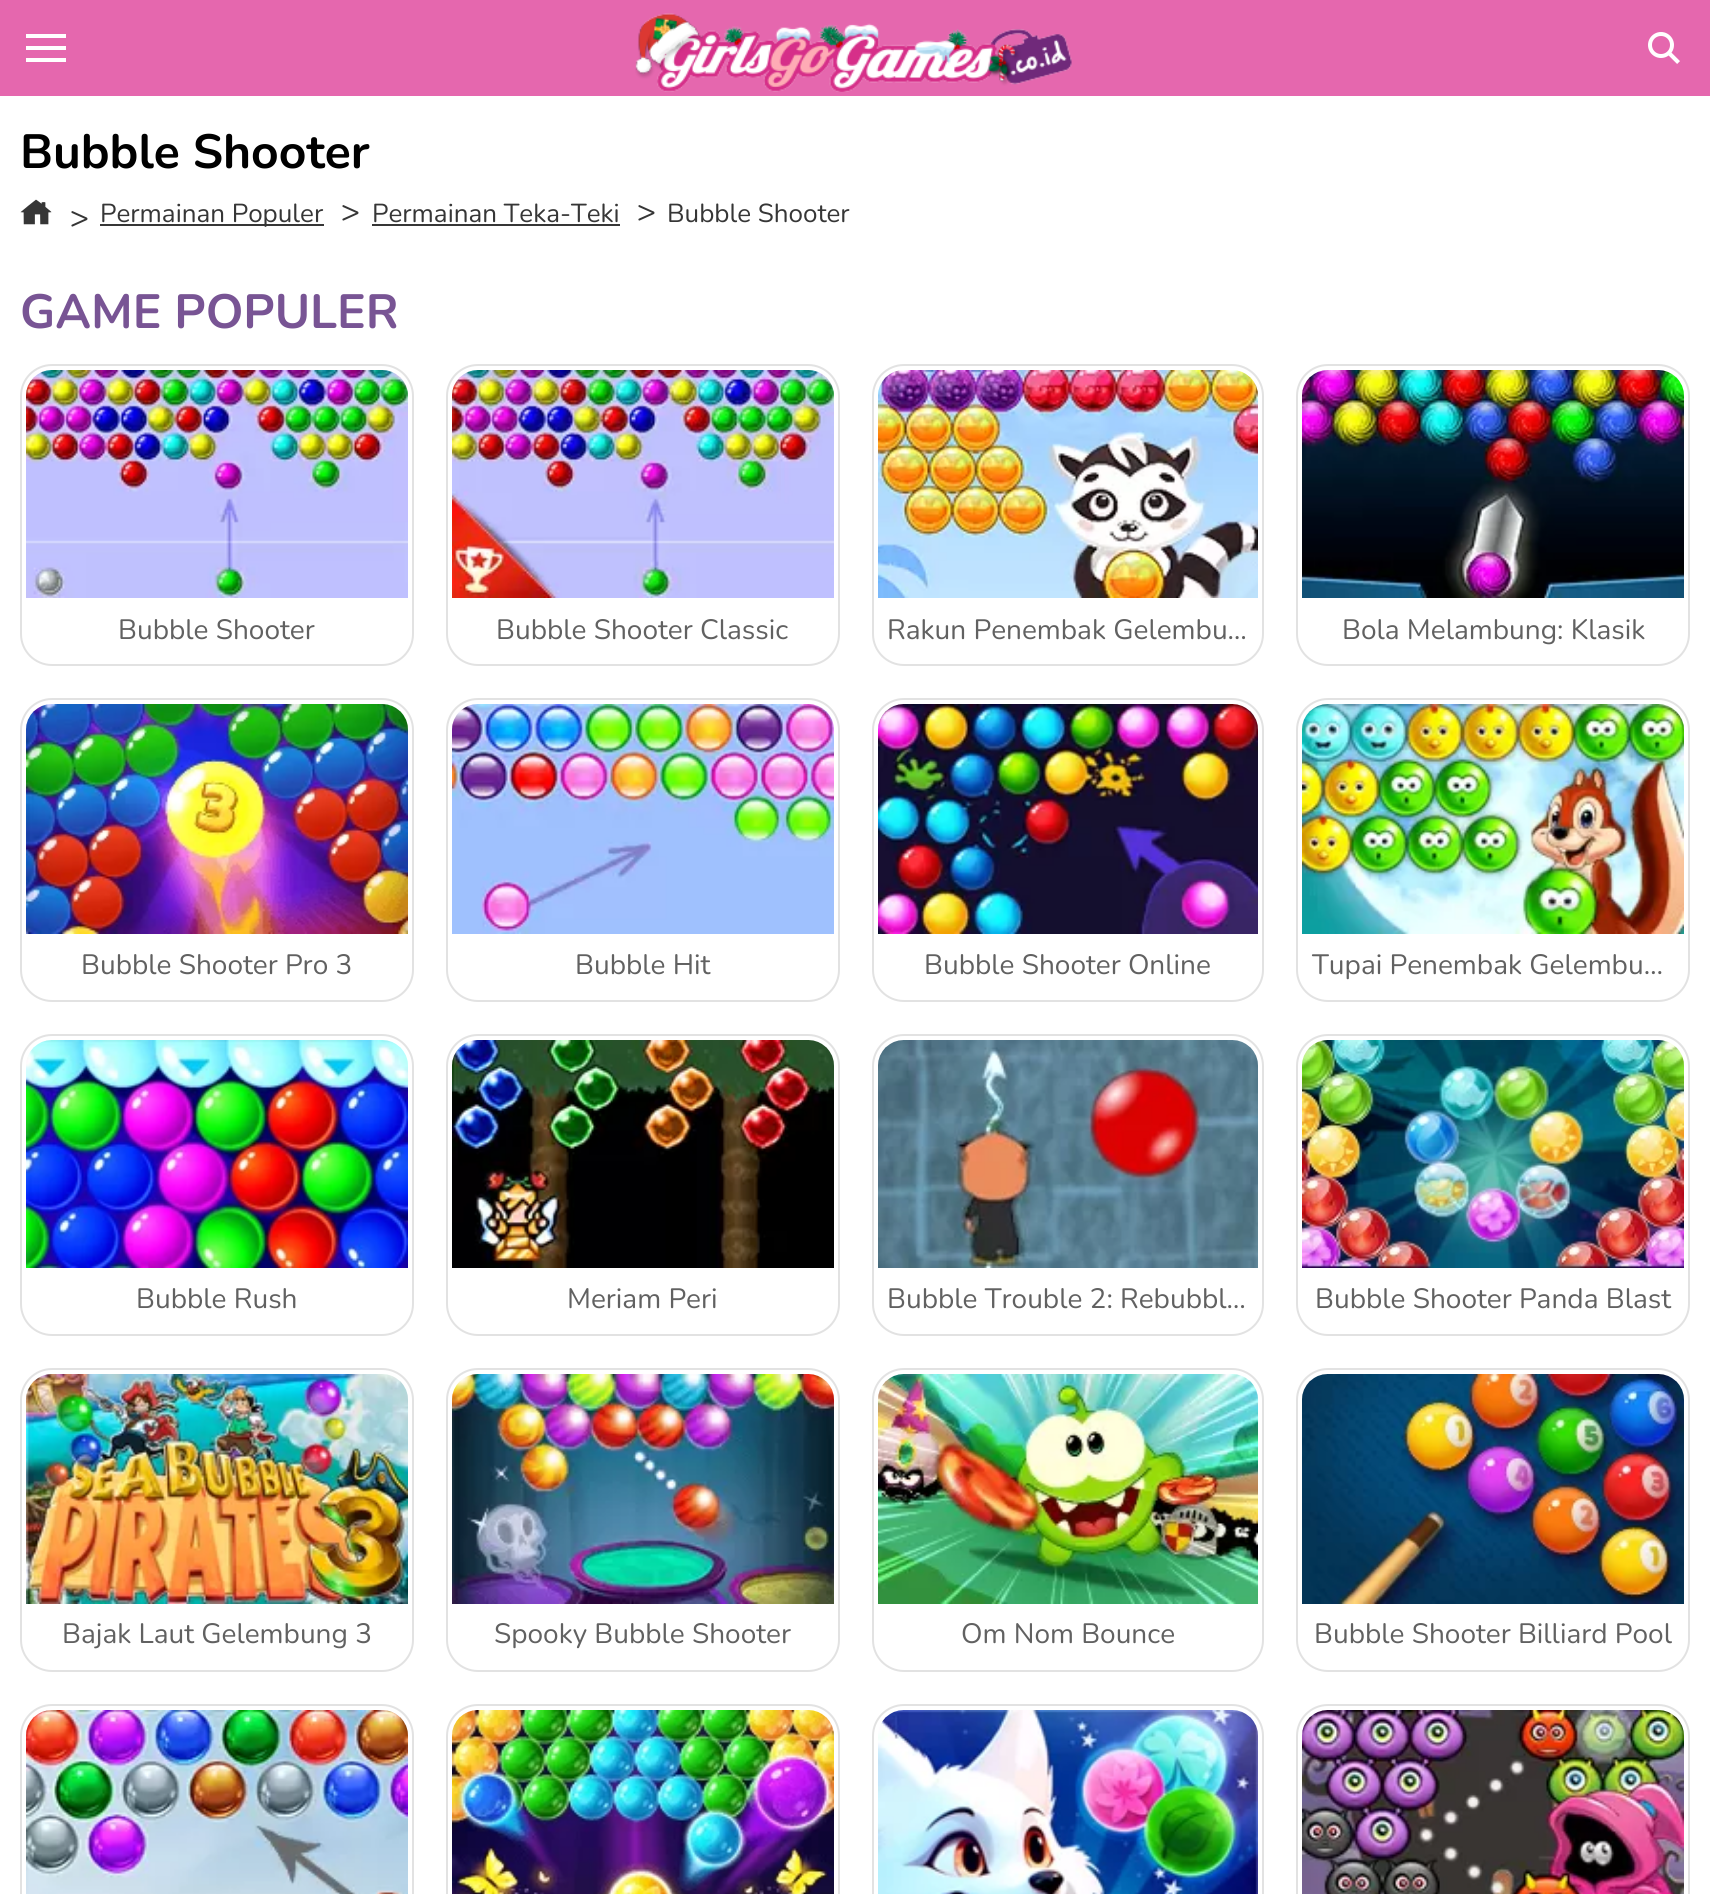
import math
import cairocffi as cairo

surface = cairo.ImageSurface(cairo.FORMAT_RGB24, 1710, 1894)
ctx = cairo.Context(surface)
options = cairo.FontOptions()
options.set_hint_metrics(cairo.HINT_METRICS_OFF)
options.set_hint_style(cairo.HINT_STYLE_NONE)
ctx.set_font_options(options)
ctx.set_miter_limit(4)


def rgb(r, g, b):
    ctx.set_source_rgb(r / 255, g / 255, b / 255)


def face(family, size, italic, bold):
    ctx.select_font_face(family, cairo.FONT_SLANT_ITALIC if italic else cairo.FONT_SLANT_NORMAL, cairo.FONT_WEIGHT_BOLD if bold else cairo.FONT_WEIGHT_NORMAL)
    ctx.set_font_size(size)


def label(x, y, s):
    ctx.move_to(x, y)
    ctx.show_text(s)


def rect(x, y, w, h):
    ctx.rectangle(x, y, w, h)
    ctx.fill()


def rrect(x, y, w, h, r):
    ctx.new_sub_path()
    for i, (u, v) in enumerate([(x + w - r, y + h - r), (x + r, y + h - r), (x + r, y + r), (x + w - r, y + r)]):
        ctx.arc(u, v, r, i * math.pi / 2, (i + 1) * math.pi / 2)
    ctx.close_path()


def image(path, x, y, w, h):
    ctx.save()
    ctx.set_source_surface(cairo.ImageSurface.create_from_png(path), x, y)
    ctx.rectangle(x, y, w, h)
    ctx.fill()
    ctx.restore()


rgb(229, 103, 174)
ctx.paint()
rgb(255, 255, 255)
rect(26, 34, 40, 4)
rect(26, 46, 40, 4)
rect(26, 58, 40, 4)
image('image0.png', 635, 13, 437, 79)
image('image1.png', 1648, 32, 32, 32)
rect(0, 96, 1710, 1798)
face('Nunito', 48, 0, 1)
rgb(0, 0, 0)
label(20, 168, 'Bubble Shooter')
image('image2.png', 20, 199, 32, 26)
face('Nunito', 32, 0, 0)
rgb(54, 54, 54)
label(70, 228, '>')
rect(100, 224, 224, 2)
face('Nunito', 26, 0, 0)
label(100, 222, 'Permainan Populer')
face('Nunito', 32, 0, 0)
label(341, 222, '>')
face('Nunito', 26, 0, 0)
label(372, 222, 'Permainan Teka-Teki')
rect(372, 224, 248, 2)
face('Nunito', 32, 0, 0)
label(637, 222, '>')
face('Nunito', 26, 0, 0)
label(667, 222, 'Bubble Shooter')
face('Nunito', 48, 0, 1)
rgb(120, 84, 148)
label(20, 328, 'GAME POPULER')
rrect(21, 365, 392, 300, 31)
rgb(226, 226, 226)
ctx.stroke()
image('image3.png', 26, 370, 382, 228)
face('Nunito', 28, 0, 0)
rgb(97, 97, 97)
label(118, 639, 'Bubble Shooter')
rrect(447, 365, 392, 300, 31)
rgb(226, 226, 226)
ctx.stroke()
image('image4.png', 452, 370, 382, 228)
rgb(97, 97, 97)
label(496, 639, 'Bubble Shooter Classic')
rrect(873, 365, 390, 300, 31)
rgb(226, 226, 226)
ctx.stroke()
image('image5.png', 878, 370, 380, 228)
rgb(97, 97, 97)
label(887, 639, 'Rakun Penembak Gelembu…')
rrect(1297, 365, 392, 300, 31)
rgb(226, 226, 226)
ctx.stroke()
image('image6.png', 1302, 370, 382, 228)
rgb(97, 97, 97)
label(1342, 639, 'Bola Melambung: Klasik')
rrect(21, 699, 392, 302, 31)
rgb(226, 226, 226)
ctx.stroke()
image('image7.png', 26, 704, 382, 230)
rgb(97, 97, 97)
label(81, 974, 'Bubble Shooter Pro 3')
rrect(447, 699, 392, 302, 31)
rgb(226, 226, 226)
ctx.stroke()
image('image8.png', 452, 704, 382, 230)
rgb(97, 97, 97)
label(575, 974, 'Bubble Hit')
rrect(873, 699, 390, 302, 31)
rgb(226, 226, 226)
ctx.stroke()
image('image9.png', 878, 704, 380, 230)
rgb(97, 97, 97)
label(924, 974, 'Bubble Shooter Online')
rrect(1297, 699, 392, 302, 31)
rgb(226, 226, 226)
ctx.stroke()
image('image10.png', 1302, 704, 382, 230)
rgb(97, 97, 97)
label(1312, 974, 'Tupai Penembak Gelembu…')
rrect(21, 1035, 392, 300, 31)
rgb(226, 226, 226)
ctx.stroke()
image('image11.png', 26, 1040, 382, 228)
rgb(97, 97, 97)
label(136, 1308, 'Bubble Rush')
rrect(447, 1035, 392, 300, 31)
rgb(226, 226, 226)
ctx.stroke()
image('image12.png', 452, 1040, 382, 228)
rgb(97, 97, 97)
label(567, 1308, 'Meriam Peri')
rrect(873, 1035, 390, 300, 31)
rgb(226, 226, 226)
ctx.stroke()
image('image13.png', 878, 1040, 380, 228)
rgb(97, 97, 97)
label(887, 1308, 'Bubble Trouble 2: Rebubbl…')
rrect(1297, 1035, 392, 300, 31)
rgb(226, 226, 226)
ctx.stroke()
image('image14.png', 1302, 1040, 382, 228)
rgb(97, 97, 97)
label(1315, 1308, 'Bubble Shooter Panda Blast')
rrect(21, 1369, 392, 302, 31)
rgb(226, 226, 226)
ctx.stroke()
image('image15.png', 26, 1374, 382, 230)
rgb(97, 97, 97)
label(62, 1643, 'Bajak Laut Gelembung 3')
rrect(447, 1369, 392, 302, 31)
rgb(226, 226, 226)
ctx.stroke()
image('image16.png', 452, 1374, 382, 230)
rgb(97, 97, 97)
label(494, 1643, 'Spooky Bubble Shooter')
rrect(873, 1369, 390, 302, 31)
rgb(226, 226, 226)
ctx.stroke()
image('image17.png', 878, 1374, 380, 230)
rgb(97, 97, 97)
label(961, 1643, 'Om Nom Bounce')
rrect(1297, 1369, 392, 302, 31)
rgb(226, 226, 226)
ctx.stroke()
image('image18.png', 1302, 1374, 382, 230)
rgb(97, 97, 97)
label(1314, 1643, 'Bubble Shooter Billiard Pool')
rrect(21, 1705, 392, 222, 31)
rgb(226, 226, 226)
ctx.stroke()
image('image19.png', 26, 1710, 382, 184)
rrect(447, 1705, 392, 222, 31)
ctx.stroke()
image('image20.png', 452, 1710, 382, 184)
rrect(873, 1705, 390, 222, 31)
ctx.stroke()
image('image21.png', 878, 1710, 380, 184)
rrect(1297, 1705, 392, 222, 31)
ctx.stroke()
image('image22.png', 1302, 1710, 382, 184)
surface.write_to_png('render.png')
